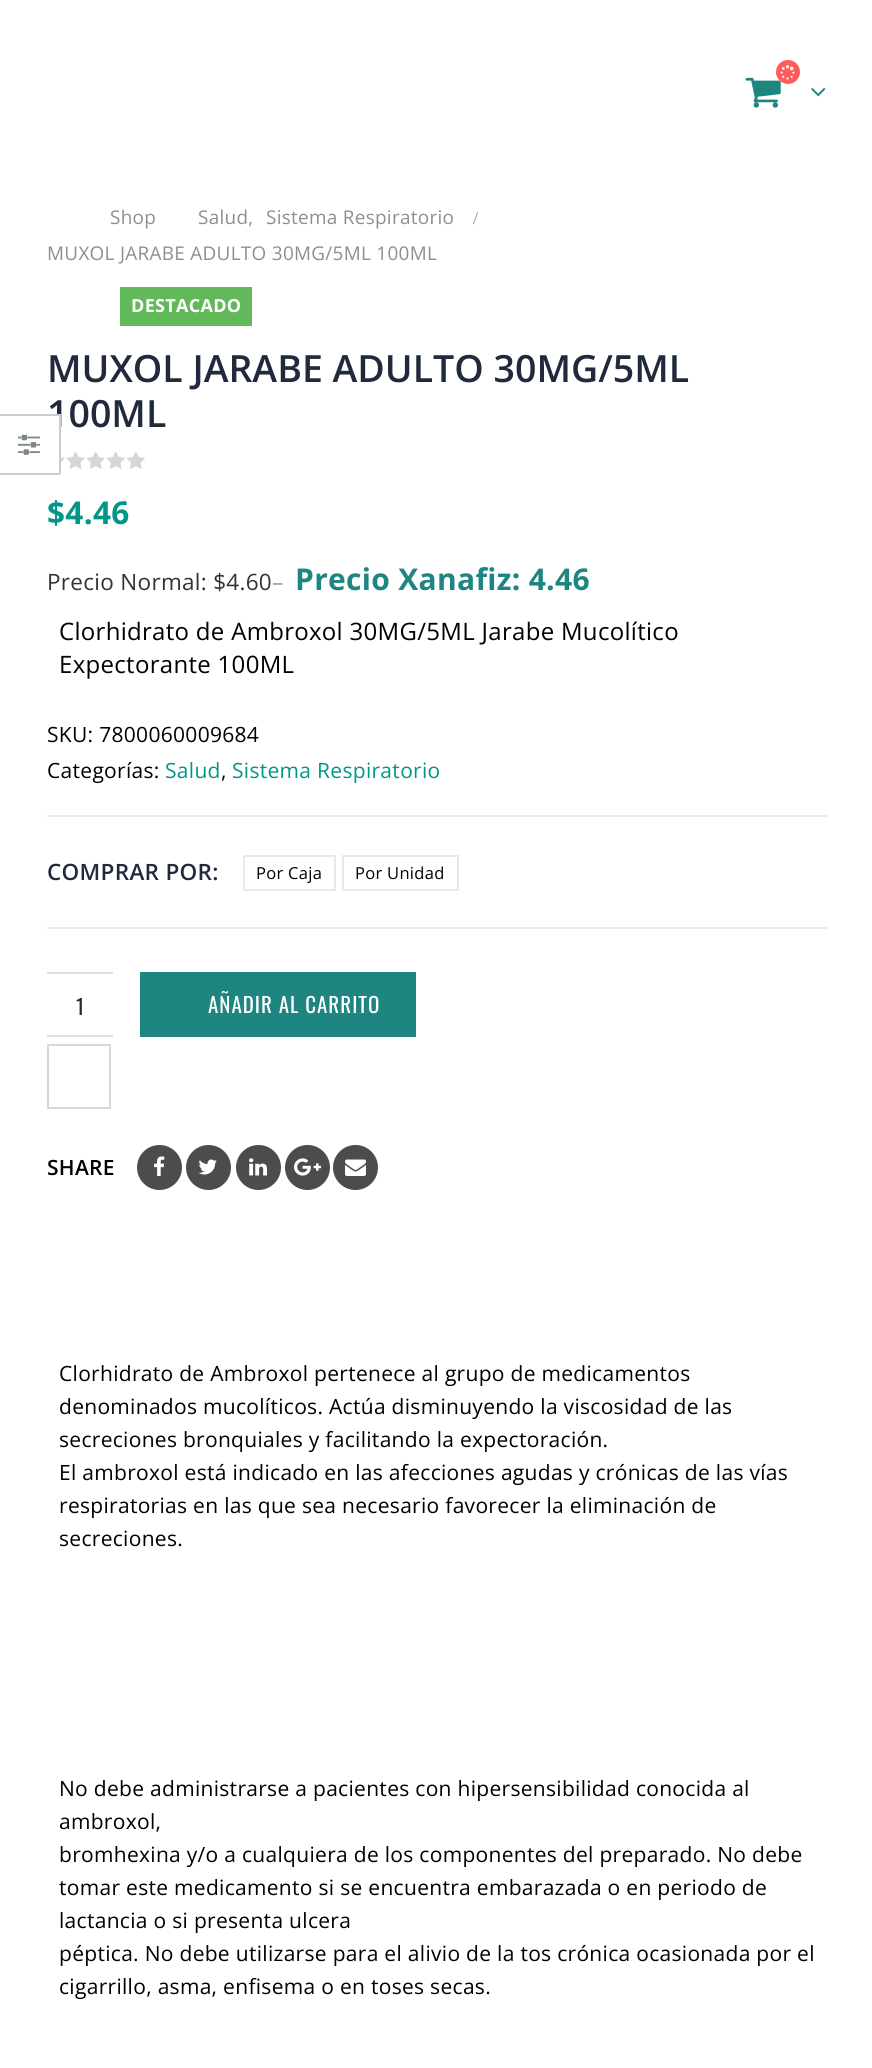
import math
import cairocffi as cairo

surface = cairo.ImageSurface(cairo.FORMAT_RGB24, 872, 2068)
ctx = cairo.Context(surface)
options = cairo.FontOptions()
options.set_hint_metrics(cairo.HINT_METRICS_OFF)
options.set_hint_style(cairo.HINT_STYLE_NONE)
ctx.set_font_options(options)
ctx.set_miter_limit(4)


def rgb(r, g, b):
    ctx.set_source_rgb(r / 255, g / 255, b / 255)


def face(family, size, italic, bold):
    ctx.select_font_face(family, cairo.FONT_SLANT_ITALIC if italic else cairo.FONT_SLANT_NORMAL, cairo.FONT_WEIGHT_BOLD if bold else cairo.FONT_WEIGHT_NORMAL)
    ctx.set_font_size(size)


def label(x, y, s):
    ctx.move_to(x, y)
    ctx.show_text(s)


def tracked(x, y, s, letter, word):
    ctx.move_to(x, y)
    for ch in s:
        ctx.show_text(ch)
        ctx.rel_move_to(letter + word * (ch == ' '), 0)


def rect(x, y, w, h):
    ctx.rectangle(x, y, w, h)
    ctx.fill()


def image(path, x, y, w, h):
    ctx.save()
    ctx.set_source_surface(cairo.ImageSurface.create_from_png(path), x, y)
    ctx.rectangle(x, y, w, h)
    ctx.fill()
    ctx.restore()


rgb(255, 255, 255)
ctx.paint()
image('image1.png', 745, 77, 36, 31)
rgb(255, 91, 91)
ctx.arc(788, 72, 12, 0, 2 * math.pi)
ctx.fill()
image('image0.png', 780, 65, 15, 15)
image('image2.png', 811, 88, 15, 9)
face('Open Sans', 18.9, 0, 0)
rgb(142, 142, 142)
tracked(110, 224, 'Shop', 0.3, 0)
tracked(198, 224, 'Salud,', 0.3, 0)
tracked(266, 224, 'Sistema Respiratorio', 0.3, 0)
face('Liberation Serif', 18, 0, 0)
tracked(473, 224, '/', 0.3, 0)
face('Open Sans', 18.9, 0, 0)
tracked(47, 260, 'MUXOL JARABE ADULTO 30MG/5ML 100ML', 0.3, 0)
face('Open Sans SemiBold', 37.5, 0, 0)
rgb(33, 41, 60)
label(47, 427, '100ML')
rgb(255, 255, 255)
rect(56, 416, 3, 11)
rgb(204, 204, 204)
rect(0, 414, 60, 2)
rect(59, 414, 2, 60)
rect(0, 473, 60, 2)
image('image3.png', 18, 434, 22, 21)
rgb(98, 185, 89)
rect(120, 287, 132, 39)
face('Open Sans', 18, 0, 1)
rgb(255, 255, 255)
tracked(131, 312, 'DESTACADO', 0.3, 0)
face('Open Sans SemiBold', 37.5, 0, 0)
rgb(33, 41, 60)
label(47, 382, 'MUXOL JARABE ADULTO 30MG/5ML')
image('image4.png', 61, 452, 84, 17)
face('Open Sans', 31.5, 0, 1)
rgb(0, 150, 136)
tracked(47, 524, '$4.46', 0.3, 0)
face('Open Sans', 22.5, 0, 0)
rgb(51, 51, 51)
tracked(47, 590, 'Precio Normal: $4.60', 0.3, 0)
rgb(153, 153, 153)
tracked(272, 590, '–', 0.3, 0)
face('Open Sans', 30, 0, 1)
rgb(30, 133, 129)
tracked(295, 590, 'Precio Xanafiz: 4.46', 0.3, 0)
face('Open Sans', 24, 0, 0)
rgb(0, 0, 0)
tracked(59, 640, 'Clorhidrato de Ambroxol 30MG/5ML Jarabe Mucolítico', 0.3, 0)
tracked(59, 673, 'Expectorante 100ML', 0.3, 0)
rgb(235, 235, 235)
rect(47, 815, 780, 2)
face('Open Sans', 21, 0, 0)
rgb(0, 0, 0)
tracked(47, 742, 'SKU: 7800060009684', 0.3, 0)
tracked(47, 778, 'Categorías:', 0.3, 0)
rgb(0, 150, 136)
tracked(165, 778, 'Salud', 0.3, 0)
rgb(0, 0, 0)
tracked(221, 778, ',', 0.3, 0)
rgb(0, 150, 136)
tracked(232, 778, 'Sistema Respiratorio', 0.3, 0)
face('Open Sans SemiBold', 22.5, 0, 0)
rgb(33, 41, 60)
tracked(47, 880, 'COMPRAR POR:', 0.3, 0)
ctx.rectangle(244, 856, 91, 34)
rgb(233, 233, 233)
ctx.stroke()
face('Open Sans', 16.5, 0, 0)
rgb(0, 0, 0)
tracked(256, 879, 'Por Caja', 0.3, 0)
ctx.rectangle(343, 856, 115, 34)
rgb(233, 233, 233)
ctx.stroke()
rgb(0, 0, 0)
tracked(355, 879, 'Por Unidad', 0.3, 0)
rgb(235, 235, 235)
rect(47, 927, 780, 2)
rgb(218, 226, 230)
rect(47, 972, 66, 2)
rect(47, 1035, 66, 2)
face('Oswald', 21, 0, 0)
rgb(33, 41, 60)
label(76, 1015, '1')
rgb(30, 133, 129)
rect(140, 972, 276, 65)
rgb(255, 255, 255)
tracked(208, 1013, 'AÑADIR AL CARRITO', 1, 0)
ctx.rectangle(48, 1045, 62, 63)
rgb(216, 216, 214)
ctx.stroke()
face('Open Sans SemiBold', 21, 0, 0)
rgb(0, 0, 0)
tracked(47, 1175, 'SHARE', 0.3, 0)
rgb(76, 76, 76)
ctx.new_path()
ctx.arc(159.5, 1167.5, 22.5, 0, 2 * math.pi)
ctx.fill()
image('image5.png', 154, 1156, 11, 20)
ctx.arc(208.5, 1167.5, 22.5, 0, 2 * math.pi)
ctx.fill()
image('image6.png', 198, 1159, 19, 16)
ctx.arc(258.5, 1167.5, 22.5, 0, 2 * math.pi)
ctx.fill()
image('image7.png', 249, 1158, 18, 18)
ctx.arc(307.5, 1167.5, 22.5, 0, 2 * math.pi)
ctx.fill()
image('image8.png', 294, 1158, 27, 18)
ctx.arc(355.5, 1167.5, 22.5, 0, 2 * math.pi)
ctx.fill()
image('image9.png', 345, 1159, 21, 17)
face('Open Sans', 21, 0, 0)
rgb(0, 0, 0)
tracked(59, 1381, 'Clorhidrato de Ambroxol pertenece al grupo de medicamentos', 0.3, 0)
tracked(59, 1414, 'denominados mucolíticos. Actúa disminuyendo la viscosidad de las', 0.3, 0)
tracked(59, 1447, 'secreciones bronquiales y facilitando la expectoración.', 0.3, 0)
tracked(59, 1480, 'El ambroxol está indicado en las afecciones agudas y crónicas de las vías', 0.3, 0)
tracked(59, 1513, 'respiratorias en las que sea necesario favorecer la eliminación de', 0.3, 0)
tracked(59, 1546, 'secreciones.', 0.3, 0)
tracked(59, 1796, 'No debe administrarse a pacientes con hipersensibilidad conocida al', 0.3, 0)
tracked(59, 1829, 'ambroxol,', 0.3, 0)
tracked(59, 1862, 'bromhexina y/o a cualquiera de los componentes del preparado. No debe', 0.3, 0)
tracked(59, 1895, 'tomar este medicamento si se encuentra embarazada o en periodo de', 0.3, 0)
tracked(59, 1928, 'lactancia o si presenta ulcera', 0.3, 0)
tracked(59, 1961, 'péptica. No debe utilizarse para el alivio de la tos crónica ocasionada por el', 0.3, 0)
tracked(59, 1994, 'cigarrillo, asma, enfisema o en toses secas.', 0.3, 0)
surface.write_to_png('render.png')
